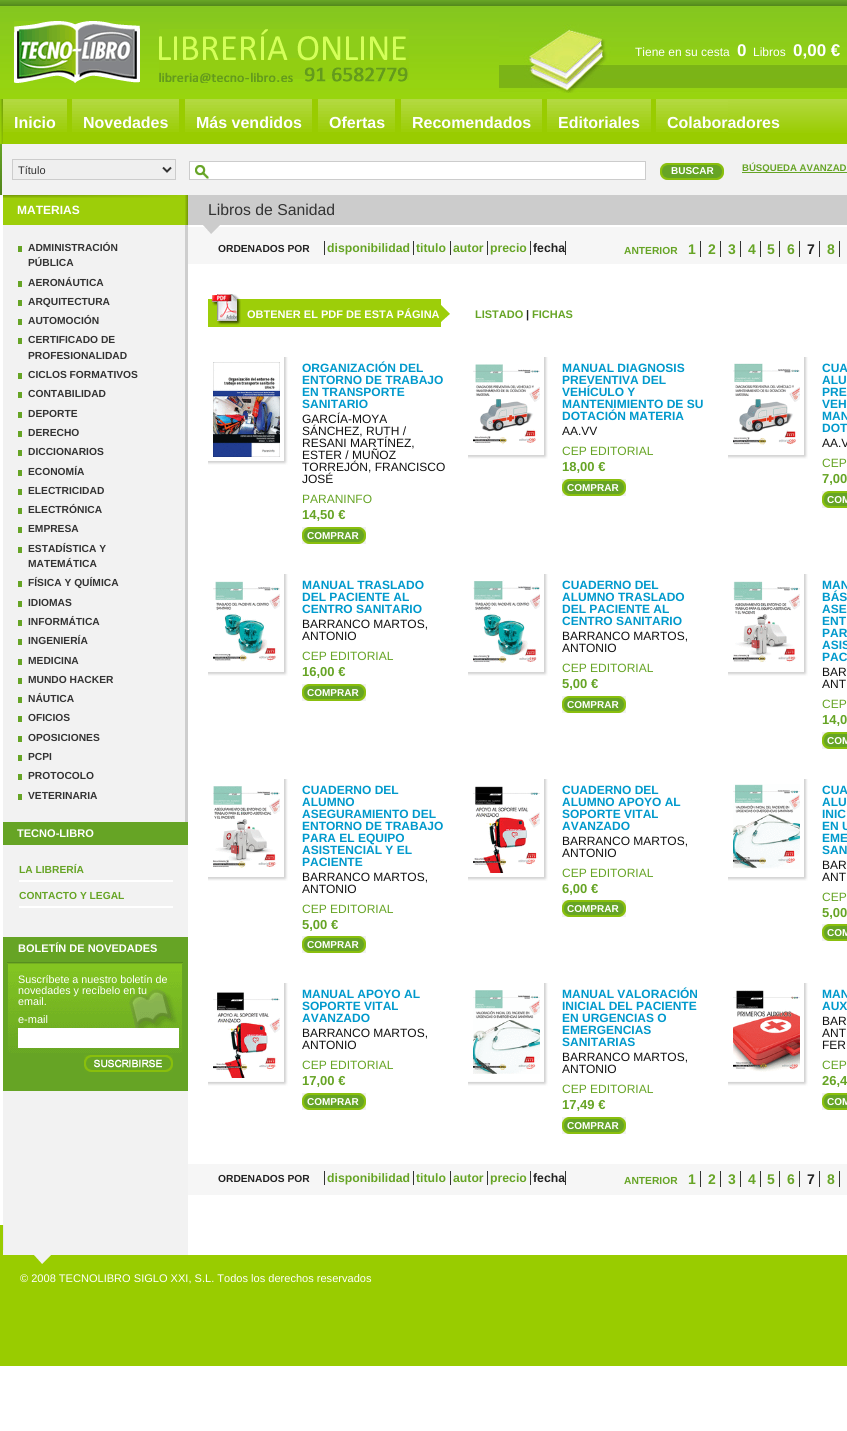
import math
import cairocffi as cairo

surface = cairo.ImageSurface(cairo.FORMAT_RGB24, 847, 1431)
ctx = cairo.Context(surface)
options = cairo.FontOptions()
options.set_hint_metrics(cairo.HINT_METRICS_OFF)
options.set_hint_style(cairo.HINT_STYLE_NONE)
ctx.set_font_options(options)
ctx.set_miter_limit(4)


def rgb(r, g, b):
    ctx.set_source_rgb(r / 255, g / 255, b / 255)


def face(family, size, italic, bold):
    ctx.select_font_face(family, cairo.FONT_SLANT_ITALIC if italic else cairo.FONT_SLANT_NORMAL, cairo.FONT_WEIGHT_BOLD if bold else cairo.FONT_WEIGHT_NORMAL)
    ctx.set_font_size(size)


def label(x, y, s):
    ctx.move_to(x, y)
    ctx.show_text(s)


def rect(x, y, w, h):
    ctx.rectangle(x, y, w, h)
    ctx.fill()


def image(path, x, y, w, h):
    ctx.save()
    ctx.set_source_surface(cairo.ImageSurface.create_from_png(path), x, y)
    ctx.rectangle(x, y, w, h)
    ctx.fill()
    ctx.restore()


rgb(255, 255, 255)
ctx.paint()
image('image0.png', 0, 0, 847, 195)
image('image1.png', 159, 29, 250, 54)
image('image2.png', 14, 21, 126, 62)
image('image3.png', 499, 24, 348, 69)
face('Liberation Sans', 12, 0, 0)
rgb(255, 255, 255)
label(635, 56, 'Tiene en su cesta')
face('Liberation Sans', 17, 0, 1)
label(737, 56, '0')
face('Liberation Sans', 12, 0, 0)
label(753, 56, 'Libros')
face('Liberation Sans', 17, 0, 1)
label(793, 56, '0,00 €')
image('image4.png', 0, 99, 847, 45)
image('image5.png', 3, 99, 64, 33)
image('image6.png', 72, 99, 107, 33)
image('image7.png', 185, 99, 127, 33)
image('image8.png', 318, 99, 77, 33)
image('image9.png', 401, 99, 141, 33)
image('image10.png', 547, 99, 104, 33)
image('image11.png', 656, 99, 72, 33)
face('Liberation Sans', 16, 0, 1)
label(14, 128, 'Inicio')
label(83, 128, 'Novedades')
label(196, 128, 'Más vendidos')
label(329, 128, 'Ofertas')
label(412, 128, 'Recomendados')
label(558, 128, 'Editoriales')
label(667, 128, 'Colaboradores')
rgb(242, 242, 242)
rect(2, 144, 845, 51)
rgb(239, 239, 239)
ctx.rectangle(12.5, 159.5, 163, 20)
ctx.fill_preserve()
rgb(204, 204, 204)
ctx.set_line_width(1)
ctx.stroke()
ctx.new_path()
ctx.move_to(163, 167.5)
ctx.line_to(167, 171.5)
ctx.line_to(171, 167.5)
rgb(51, 51, 51)
ctx.set_line_width(2)
ctx.stroke()
face('Liberation Sans', 11, 0, 0)
label(18, 174, 'Título')
rgb(255, 255, 255)
rect(190, 162, 455, 17)
image('image12.png', 195, 165, 14, 14)
ctx.rectangle(189.5, 161.5, 456, 18)
rgb(204, 204, 204)
ctx.set_line_width(1)
ctx.stroke()
image('image13.png', 660, 163, 64, 17)
face('Liberation Sans', 10, 0, 1)
rgb(255, 255, 255)
label(671, 174, 'BUSCAR')
rgb(102, 164, 37)
rect(742, 172, 105, 1)
face('Liberation Sans', 9.6, 0, 1)
label(742, 171, 'BÚSQUEDA AVANZAD')
rgb(242, 242, 242)
rect(3, 225, 185, 1000)
rgb(206, 206, 206)
rect(185, 225, 3, 597)
image('image14.png', 3, 195, 185, 30)
face('Liberation Sans', 12, 0, 1)
rgb(255, 255, 255)
label(17, 214, 'MATERIAS')
rgb(102, 164, 37)
rect(18, 246, 4, 6)
face('Liberation Sans', 10.25, 0, 1)
rgb(51, 51, 51)
label(28, 251, 'ADMINISTRACIÓN')
label(28, 266, 'PÚBLICA')
rgb(102, 164, 37)
rect(18, 281, 4, 6)
rgb(51, 51, 51)
label(28, 286, 'AERONÁUTICA')
rgb(102, 164, 37)
rect(18, 300, 4, 6)
rgb(51, 51, 51)
label(28, 305, 'ARQUITECTURA')
rgb(102, 164, 37)
rect(18, 319, 4, 6)
rgb(51, 51, 51)
label(28, 324, 'AUTOMOCIÓN')
rgb(102, 164, 37)
rect(18, 338, 4, 6)
rgb(51, 51, 51)
label(28, 343, 'CERTIFICADO DE')
label(28, 359, 'PROFESIONALIDAD')
rgb(102, 164, 37)
rect(18, 373, 4, 6)
rgb(51, 51, 51)
label(28, 378, 'CICLOS FORMATIVOS')
rgb(102, 164, 37)
rect(18, 392, 4, 6)
rgb(51, 51, 51)
label(28, 397, 'CONTABILIDAD')
rgb(102, 164, 37)
rect(18, 412, 4, 6)
rgb(51, 51, 51)
label(28, 417, 'DEPORTE')
rgb(102, 164, 37)
rect(18, 431, 4, 6)
rgb(51, 51, 51)
label(28, 436, 'DERECHO')
rgb(102, 164, 37)
rect(18, 450, 4, 6)
rgb(51, 51, 51)
label(28, 455, 'DICCIONARIOS')
rgb(102, 164, 37)
rect(18, 470, 4, 6)
rgb(51, 51, 51)
label(28, 475, 'ECONOMÍA')
rgb(102, 164, 37)
rect(18, 489, 4, 6)
rgb(51, 51, 51)
label(28, 494, 'ELECTRICIDAD')
rgb(102, 164, 37)
rect(18, 508, 4, 6)
rgb(51, 51, 51)
label(28, 513, 'ELECTRÓNICA')
rgb(102, 164, 37)
rect(18, 527, 4, 6)
rgb(51, 51, 51)
label(28, 532, 'EMPRESA')
rgb(102, 164, 37)
rect(18, 547, 4, 6)
rgb(51, 51, 51)
label(28, 552, 'ESTADÍSTICA Y')
label(28, 567, 'MATEMÁTICA')
rgb(102, 164, 37)
rect(18, 581, 4, 6)
rgb(51, 51, 51)
label(28, 586, 'FÍSICA Y QUÍMICA')
rgb(102, 164, 37)
rect(18, 601, 4, 6)
rgb(51, 51, 51)
label(28, 606, 'IDIOMAS')
rgb(102, 164, 37)
rect(18, 620, 4, 6)
rgb(51, 51, 51)
label(28, 625, 'INFORMÁTICA')
rgb(102, 164, 37)
rect(18, 639, 4, 6)
rgb(51, 51, 51)
label(28, 644, 'INGENIERÍA')
rgb(102, 164, 37)
rect(18, 659, 4, 6)
rgb(51, 51, 51)
label(28, 664, 'MEDICINA')
rgb(102, 164, 37)
rect(18, 678, 4, 6)
rgb(51, 51, 51)
label(28, 683, 'MUNDO HACKER')
rgb(102, 164, 37)
rect(18, 697, 4, 6)
rgb(51, 51, 51)
label(28, 702, 'NÁUTICA')
rgb(102, 164, 37)
rect(18, 716, 4, 6)
rgb(51, 51, 51)
label(28, 721, 'OFICIOS')
rgb(102, 164, 37)
rect(18, 736, 4, 6)
rgb(51, 51, 51)
label(28, 741, 'OPOSICIONES')
rgb(102, 164, 37)
rect(18, 755, 4, 6)
rgb(51, 51, 51)
label(28, 760, 'PCPI')
rgb(102, 164, 37)
rect(18, 774, 4, 6)
rgb(51, 51, 51)
label(28, 779, 'PROTOCOLO')
rgb(102, 164, 37)
rect(18, 794, 4, 6)
rgb(51, 51, 51)
label(28, 799, 'VETERINARIA')
rgb(102, 164, 37)
rect(3, 822, 185, 23)
face('Liberation Sans', 11.05, 0, 1)
rgb(255, 255, 255)
label(17, 837, 'TECNO-LIBRO')
rect(19, 880, 154, 2)
face('Liberation Sans', 10.25, 0, 1)
rgb(102, 164, 37)
label(19, 873, 'LA LIBRERÍA')
rgb(255, 255, 255)
rect(19, 906, 154, 2)
rgb(102, 164, 37)
label(19, 899, 'CONTACTO Y LEGAL')
rect(3, 937, 185, 154)
image('image15.png', 7, 962, 176, 91)
face('Liberation Sans', 11, 0, 1)
rgb(255, 255, 255)
label(18, 952, 'BOLETÍN DE NOVEDADES')
face('Liberation Sans', 10.75, 0, 0)
label(18, 983, 'Suscríbete a nuestro boletín de')
label(18, 994, 'novedades y recíbelo en tu')
label(18, 1005, 'email.')
face('Liberation Sans', 11, 0, 0)
label(18, 1023, 'e-mail')
rect(18, 1028, 161, 20)
image('image16.png', 84, 1055, 89, 17)
image('image17.png', 188, 225, 659, 9)
rgb(204, 204, 204)
rect(188, 195, 659, 30)
face('Liberation Sans', 15.75, 0, 0)
rgb(51, 51, 51)
label(208, 215, 'Libros de Sanidad')
rgb(246, 246, 246)
rect(188, 234, 659, 30)
face('Liberation Sans', 10.25, 0, 1)
rgb(34, 34, 34)
label(218, 252, 'ORDENADOS POR')
face('Liberation Sans', 12.25, 0, 1)
rgb(102, 164, 37)
label(327, 252, 'disponibilidad')
rgb(51, 51, 51)
rect(324, 241, 1, 14)
rgb(102, 164, 37)
label(416, 252, 'titulo')
rgb(51, 51, 51)
rect(413, 241, 1, 14)
rgb(102, 164, 37)
label(453, 252, 'autor')
rgb(51, 51, 51)
rect(450, 241, 1, 14)
rect(487, 241, 1, 14)
rgb(102, 164, 37)
label(490, 252, 'precio')
rgb(34, 34, 34)
label(533, 252, 'fecha')
rgb(51, 51, 51)
rect(530, 241, 1, 14)
rect(565, 241, 1, 14)
face('Liberation Sans', 10.25, 0, 1)
rgb(102, 164, 37)
label(624, 254, 'ANTERIOR')
face('Liberation Sans', 14, 0, 1)
label(688, 254, '1')
rgb(51, 51, 51)
rect(700, 241, 1, 16)
rgb(102, 164, 37)
label(708, 254, '2')
rgb(51, 51, 51)
rect(720, 241, 1, 16)
rgb(102, 164, 37)
label(728, 254, '3')
rgb(51, 51, 51)
rect(740, 241, 1, 16)
rgb(102, 164, 37)
label(748, 254, '4')
rgb(51, 51, 51)
rect(760, 241, 1, 16)
rgb(102, 164, 37)
label(767, 254, '5')
rgb(51, 51, 51)
rect(779, 241, 1, 16)
rgb(102, 164, 37)
label(787, 254, '6')
rgb(51, 51, 51)
rect(799, 241, 1, 16)
rgb(34, 34, 34)
label(807, 254, '7')
rgb(51, 51, 51)
rect(819, 241, 1, 16)
rgb(102, 164, 37)
label(827, 254, '8')
rgb(51, 51, 51)
rect(839, 241, 1, 16)
image('image18.png', 208, 294, 242, 33)
face('Liberation Sans', 11, 0, 1)
rgb(255, 255, 255)
label(247, 318, 'OBTENER EL PDF DE ESTA PÁGINA')
rgb(102, 164, 37)
label(475, 318, 'LISTADO')
rgb(34, 34, 34)
label(526, 318, '|')
rgb(102, 164, 37)
label(532, 318, 'FICHAS')
image('image19.png', 208, 357, 80, 108)
image('image20.png', 213, 362, 67, 95)
face('Liberation Sans', 12, 0, 1)
rgb(0, 153, 204)
label(302, 372, 'ORGANIZACIÓN DEL')
label(302, 384, 'ENTORNO DE TRABAJO')
label(302, 396, 'EN TRANSPORTE')
label(302, 408, 'SANITARIO')
face('Liberation Sans', 12, 0, 0)
rgb(17, 17, 17)
label(302, 423, 'GARCÍA-MOYA')
label(302, 435, 'SÁNCHEZ, RUTH /')
label(302, 447, 'RESANI MARTÍNEZ,')
label(302, 459, 'ESTER / MUÑOZ')
label(302, 471, 'TORREJÓN, FRANCISCO')
label(302, 483, 'JOSÉ')
rgb(102, 164, 37)
label(302, 503, 'PARANINFO')
face('Liberation Sans', 13, 0, 1)
label(302, 519, '14,50 €')
image('image13.png', 302, 527, 64, 17)
face('Liberation Sans', 10, 0, 1)
rgb(255, 255, 255)
label(307, 539, 'COMPRAR')
image('image21.png', 468, 357, 80, 102)
image('image22.png', 473, 364, 67, 81)
face('Liberation Sans', 12, 0, 1)
rgb(0, 153, 204)
label(562, 372, 'MANUAL DIAGNOSIS')
label(562, 384, 'PREVENTIVA DEL')
label(562, 396, 'VEHÍCULO Y')
label(562, 408, 'MANTENIMIENTO DE SU')
label(562, 420, 'DOTACIÓN MATERIA')
face('Liberation Sans', 12, 0, 0)
rgb(17, 17, 17)
label(562, 435, 'AA.VV')
rgb(102, 164, 37)
label(562, 455, 'CEP EDITORIAL')
face('Liberation Sans', 13, 0, 1)
label(562, 471, '18,00 €')
image('image13.png', 562, 479, 64, 17)
face('Liberation Sans', 10, 0, 1)
rgb(255, 255, 255)
label(567, 491, 'COMPRAR')
image('image21.png', 728, 357, 80, 102)
image('image23.png', 733, 363, 67, 82)
face('Liberation Sans', 12, 0, 1)
rgb(0, 153, 204)
label(822, 372, 'CUA')
label(822, 384, 'ALU')
label(822, 396, 'PRE')
label(822, 408, 'VEH')
label(822, 420, 'MAN')
label(822, 432, 'DOT')
face('Liberation Sans', 12, 0, 0)
rgb(17, 17, 17)
label(822, 447, 'AA.V')
rgb(102, 164, 37)
label(822, 467, 'CEP')
face('Liberation Sans', 13, 0, 1)
label(822, 483, '7,00')
image('image24.png', 822, 491, 25, 17)
face('Liberation Sans', 10, 0, 1)
rgb(255, 255, 255)
label(827, 503, 'COM')
image('image21.png', 208, 574, 80, 102)
image('image25.png', 213, 581, 67, 81)
face('Liberation Sans', 12, 0, 1)
rgb(0, 153, 204)
label(302, 589, 'MANUAL TRASLADO')
label(302, 601, 'DEL PACIENTE AL')
label(302, 613, 'CENTRO SANITARIO')
face('Liberation Sans', 12, 0, 0)
rgb(17, 17, 17)
label(302, 628, 'BARRANCO MARTOS,')
label(302, 640, 'ANTONIO')
rgb(102, 164, 37)
label(302, 660, 'CEP EDITORIAL')
face('Liberation Sans', 13, 0, 1)
label(302, 676, '16,00 €')
image('image13.png', 302, 684, 64, 17)
face('Liberation Sans', 10, 0, 1)
rgb(255, 255, 255)
label(307, 696, 'COMPRAR')
image('image21.png', 468, 574, 80, 102)
image('image26.png', 473, 580, 67, 83)
face('Liberation Sans', 12, 0, 1)
rgb(0, 153, 204)
label(562, 589, 'CUADERNO DEL')
label(562, 601, 'ALUMNO TRASLADO')
label(562, 613, 'DEL PACIENTE AL')
label(562, 625, 'CENTRO SANITARIO')
face('Liberation Sans', 12, 0, 0)
rgb(17, 17, 17)
label(562, 640, 'BARRANCO MARTOS,')
label(562, 652, 'ANTONIO')
rgb(102, 164, 37)
label(562, 672, 'CEP EDITORIAL')
face('Liberation Sans', 13, 0, 1)
label(562, 688, '5,00 €')
image('image13.png', 562, 696, 64, 17)
face('Liberation Sans', 10, 0, 1)
rgb(255, 255, 255)
label(567, 708, 'COMPRAR')
image('image21.png', 728, 574, 80, 102)
image('image27.png', 733, 581, 67, 82)
face('Liberation Sans', 12, 0, 1)
rgb(0, 153, 204)
label(822, 589, 'MAN')
label(822, 601, 'BÁS')
label(822, 613, 'ASE')
label(822, 625, 'ENT')
label(822, 637, 'PAR')
label(822, 649, 'ASIS')
label(822, 661, 'PAC')
face('Liberation Sans', 12, 0, 0)
rgb(17, 17, 17)
label(822, 676, 'BAR')
label(822, 688, 'ANT')
rgb(102, 164, 37)
label(822, 708, 'CEP')
face('Liberation Sans', 13, 0, 1)
label(822, 724, '14,0')
image('image24.png', 822, 732, 25, 17)
face('Liberation Sans', 10, 0, 1)
rgb(255, 255, 255)
label(827, 744, 'COM')
image('image21.png', 208, 779, 80, 102)
image('image28.png', 213, 786, 67, 82)
face('Liberation Sans', 12, 0, 1)
rgb(0, 153, 204)
label(302, 794, 'CUADERNO DEL')
label(302, 806, 'ALUMNO')
label(302, 818, 'ASEGURAMIENTO DEL')
label(302, 830, 'ENTORNO DE TRABAJO')
label(302, 842, 'PARA EL EQUIPO')
label(302, 854, 'ASISTENCIAL Y EL')
label(302, 866, 'PACIENTE')
face('Liberation Sans', 12, 0, 0)
rgb(17, 17, 17)
label(302, 881, 'BARRANCO MARTOS,')
label(302, 893, 'ANTONIO')
rgb(102, 164, 37)
label(302, 913, 'CEP EDITORIAL')
face('Liberation Sans', 13, 0, 1)
label(302, 929, '5,00 €')
image('image13.png', 302, 936, 64, 17)
face('Liberation Sans', 10, 0, 1)
rgb(255, 255, 255)
label(307, 948, 'COMPRAR')
image('image21.png', 468, 779, 80, 102)
image('image29.png', 473, 786, 67, 87)
face('Liberation Sans', 12, 0, 1)
rgb(0, 153, 204)
label(562, 794, 'CUADERNO DEL')
label(562, 806, 'ALUMNO APOYO AL')
label(562, 818, 'SOPORTE VITAL')
label(562, 830, 'AVANZADO')
face('Liberation Sans', 12, 0, 0)
rgb(17, 17, 17)
label(562, 845, 'BARRANCO MARTOS,')
label(562, 857, 'ANTONIO')
rgb(102, 164, 37)
label(562, 877, 'CEP EDITORIAL')
face('Liberation Sans', 13, 0, 1)
label(562, 893, '6,00 €')
image('image13.png', 562, 900, 64, 17)
face('Liberation Sans', 10, 0, 1)
rgb(255, 255, 255)
label(567, 912, 'COMPRAR')
image('image21.png', 728, 779, 80, 102)
image('image30.png', 733, 784, 67, 85)
face('Liberation Sans', 12, 0, 1)
rgb(0, 153, 204)
label(822, 794, 'CUA')
label(822, 806, 'ALU')
label(822, 818, 'INIC')
label(822, 830, 'EN U')
label(822, 842, 'EME')
label(822, 854, 'SAN')
face('Liberation Sans', 12, 0, 0)
rgb(17, 17, 17)
label(822, 869, 'BAR')
label(822, 881, 'ANT')
rgb(102, 164, 37)
label(822, 901, 'CEP')
face('Liberation Sans', 13, 0, 1)
label(822, 917, '5,00')
image('image24.png', 822, 924, 25, 17)
face('Liberation Sans', 10, 0, 1)
rgb(255, 255, 255)
label(827, 936, 'COM')
image('image31.png', 208, 983, 80, 103)
image('image32.png', 213, 992, 67, 86)
face('Liberation Sans', 12, 0, 1)
rgb(0, 153, 204)
label(302, 998, 'MANUAL APOYO AL')
label(302, 1010, 'SOPORTE VITAL')
label(302, 1022, 'AVANZADO')
face('Liberation Sans', 12, 0, 0)
rgb(17, 17, 17)
label(302, 1037, 'BARRANCO MARTOS,')
label(302, 1049, 'ANTONIO')
rgb(102, 164, 37)
label(302, 1069, 'CEP EDITORIAL')
face('Liberation Sans', 13, 0, 1)
label(302, 1085, '17,00 €')
image('image13.png', 302, 1093, 64, 17)
face('Liberation Sans', 10, 0, 1)
rgb(255, 255, 255)
label(307, 1105, 'COMPRAR')
image('image31.png', 468, 983, 80, 103)
image('image33.png', 473, 990, 67, 84)
face('Liberation Sans', 12, 0, 1)
rgb(0, 153, 204)
label(562, 998, 'MANUAL VALORACIÓN')
label(562, 1010, 'INICIAL DEL PACIENTE')
label(562, 1022, 'EN URGENCIAS O')
label(562, 1034, 'EMERGENCIAS')
label(562, 1046, 'SANITARIAS')
face('Liberation Sans', 12, 0, 0)
rgb(17, 17, 17)
label(562, 1061, 'BARRANCO MARTOS,')
label(562, 1073, 'ANTONIO')
rgb(102, 164, 37)
label(562, 1093, 'CEP EDITORIAL')
face('Liberation Sans', 13, 0, 1)
label(562, 1109, '17,49 €')
image('image13.png', 562, 1117, 64, 17)
face('Liberation Sans', 10, 0, 1)
rgb(255, 255, 255)
label(567, 1129, 'COMPRAR')
image('image31.png', 728, 983, 80, 103)
image('image34.png', 733, 990, 67, 82)
face('Liberation Sans', 12, 0, 1)
rgb(0, 153, 204)
label(822, 998, 'MAN')
label(822, 1010, 'AUX')
face('Liberation Sans', 12, 0, 0)
rgb(17, 17, 17)
label(822, 1025, 'BAR')
label(822, 1037, 'ANT')
label(822, 1049, 'FER')
rgb(102, 164, 37)
label(822, 1069, 'CEP')
face('Liberation Sans', 13, 0, 1)
label(822, 1085, '26,4')
image('image24.png', 822, 1093, 25, 17)
face('Liberation Sans', 10, 0, 1)
rgb(255, 255, 255)
label(827, 1105, 'COM')
rgb(246, 246, 246)
rect(188, 1164, 659, 31)
face('Liberation Sans', 10.25, 0, 1)
rgb(34, 34, 34)
label(218, 1182, 'ORDENADOS POR')
face('Liberation Sans', 12.25, 0, 1)
rgb(102, 164, 37)
label(327, 1182, 'disponibilidad')
rgb(51, 51, 51)
rect(324, 1171, 1, 14)
rgb(102, 164, 37)
label(416, 1182, 'titulo')
rgb(51, 51, 51)
rect(413, 1171, 1, 14)
rgb(102, 164, 37)
label(453, 1182, 'autor')
rgb(51, 51, 51)
rect(450, 1171, 1, 14)
rect(487, 1171, 1, 14)
rgb(102, 164, 37)
label(490, 1182, 'precio')
rgb(34, 34, 34)
label(533, 1182, 'fecha')
rgb(51, 51, 51)
rect(530, 1171, 1, 14)
rect(565, 1171, 1, 14)
face('Liberation Sans', 10.25, 0, 1)
rgb(102, 164, 37)
label(624, 1184, 'ANTERIOR')
face('Liberation Sans', 14, 0, 1)
label(688, 1184, '1')
rgb(51, 51, 51)
rect(700, 1171, 1, 16)
rgb(102, 164, 37)
label(708, 1184, '2')
rgb(51, 51, 51)
rect(720, 1171, 1, 16)
rgb(102, 164, 37)
label(728, 1184, '3')
rgb(51, 51, 51)
rect(740, 1171, 1, 16)
rgb(102, 164, 37)
label(748, 1184, '4')
rgb(51, 51, 51)
rect(760, 1171, 1, 16)
rgb(102, 164, 37)
label(767, 1184, '5')
rgb(51, 51, 51)
rect(779, 1171, 1, 16)
rgb(102, 164, 37)
label(787, 1184, '6')
rgb(51, 51, 51)
rect(799, 1171, 1, 16)
rgb(34, 34, 34)
label(807, 1184, '7')
rgb(51, 51, 51)
rect(819, 1171, 1, 16)
rgb(102, 164, 37)
label(827, 1184, '8')
rgb(51, 51, 51)
rect(839, 1171, 1, 16)
rgb(153, 204, 0)
rect(0, 1225, 847, 141)
image('image35.png', 3, 1225, 844, 39)
face('Liberation Sans', 11.05, 0, 0)
rgb(255, 255, 255)
label(20, 1282, '© 2008 TECNOLIBRO SIGLO XXI, S.L. Todos los derechos reservados')
surface.write_to_png('render.png')
